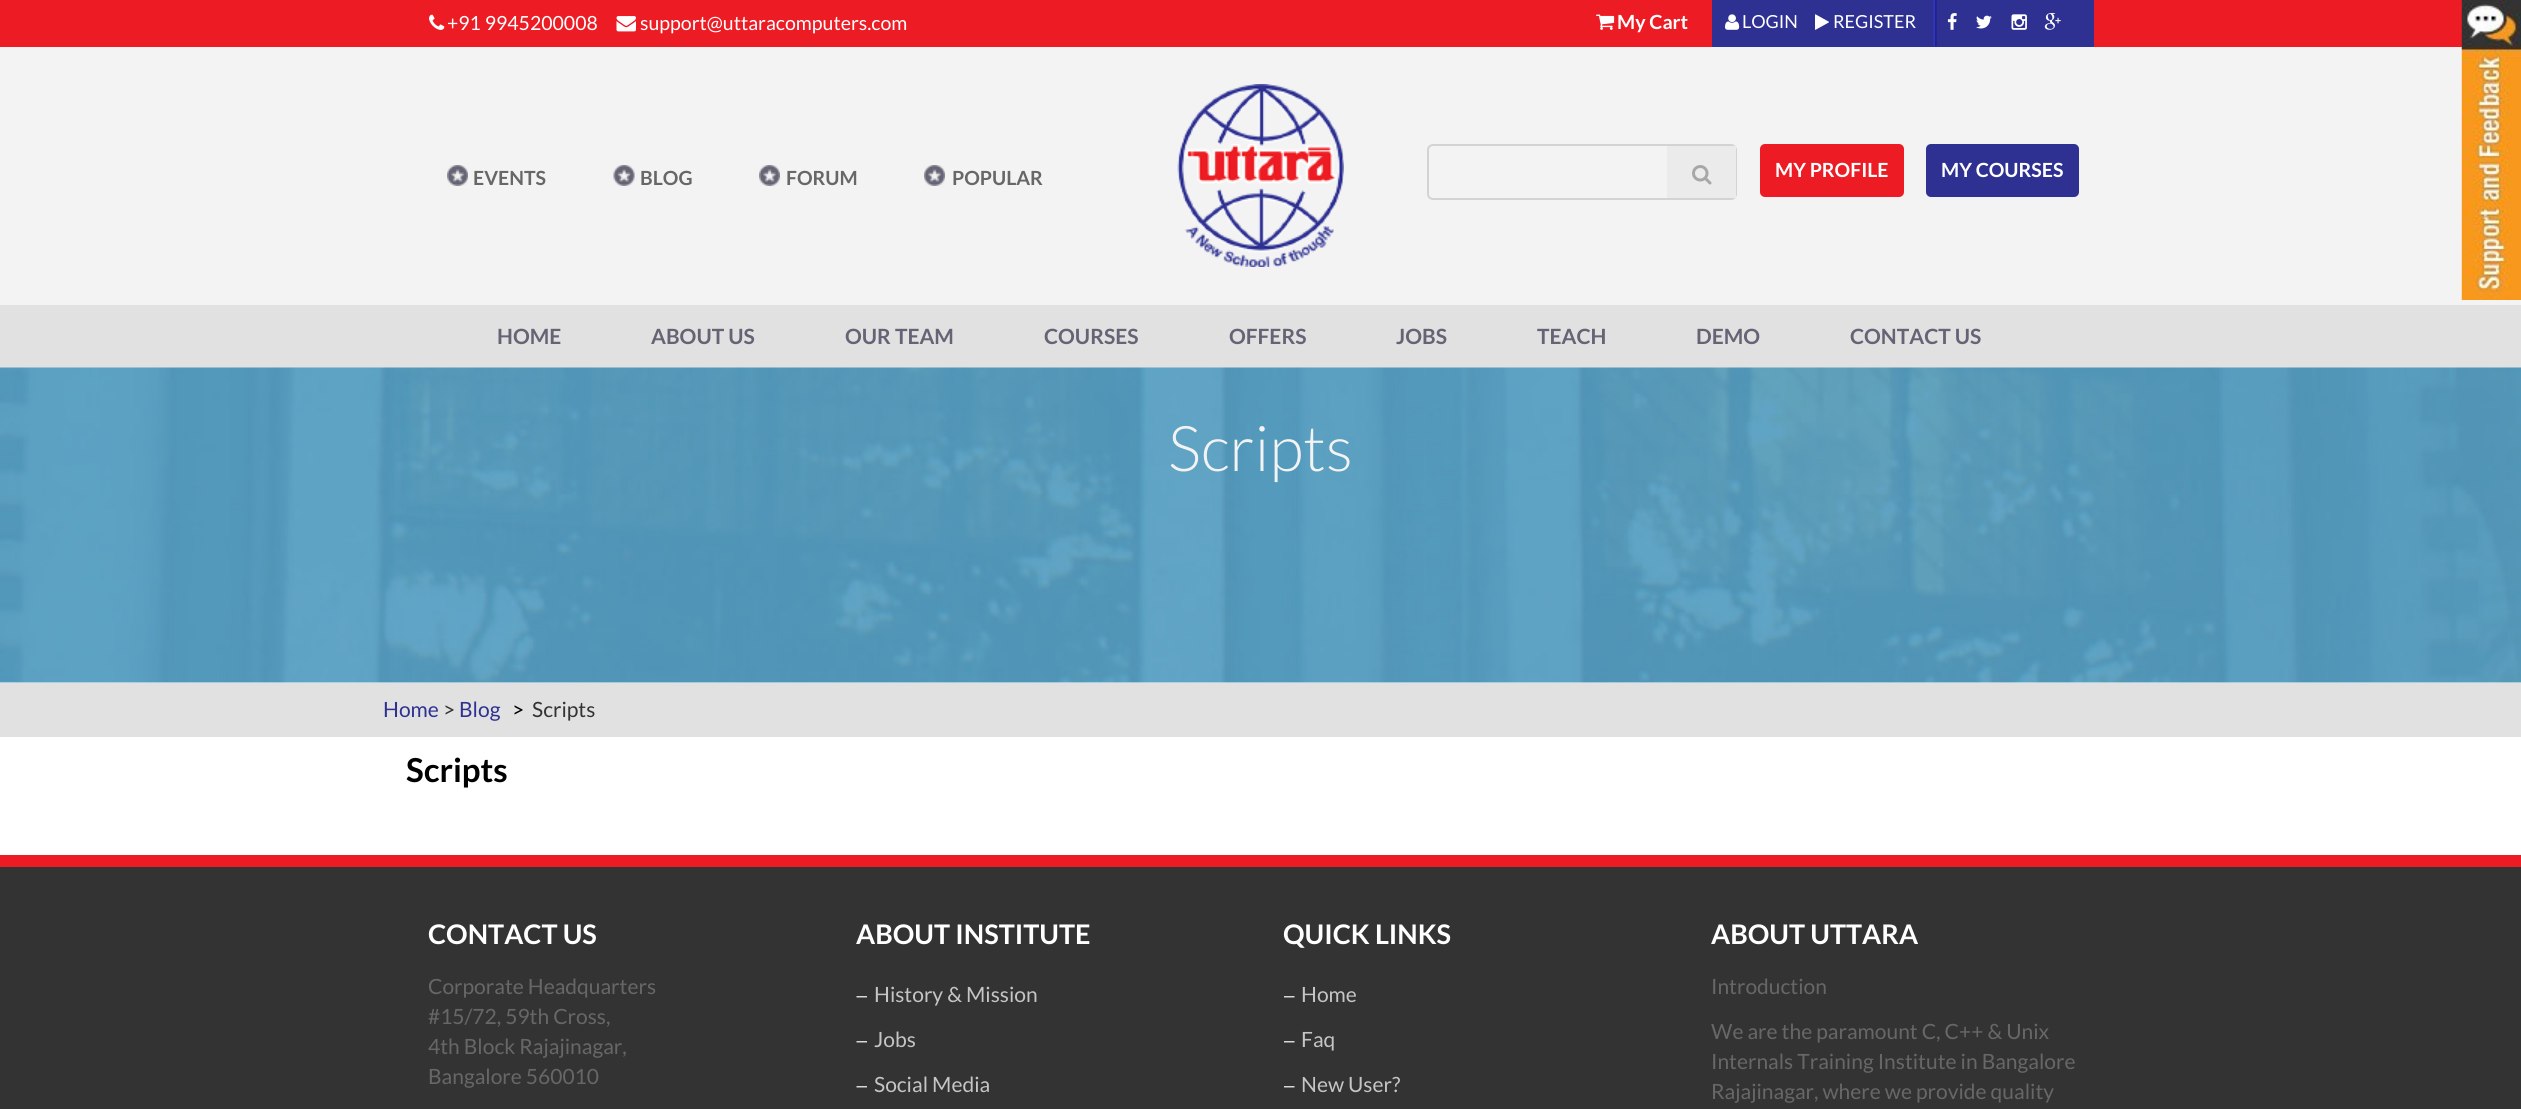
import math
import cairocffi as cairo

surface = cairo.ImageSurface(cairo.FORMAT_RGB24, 2521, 1109)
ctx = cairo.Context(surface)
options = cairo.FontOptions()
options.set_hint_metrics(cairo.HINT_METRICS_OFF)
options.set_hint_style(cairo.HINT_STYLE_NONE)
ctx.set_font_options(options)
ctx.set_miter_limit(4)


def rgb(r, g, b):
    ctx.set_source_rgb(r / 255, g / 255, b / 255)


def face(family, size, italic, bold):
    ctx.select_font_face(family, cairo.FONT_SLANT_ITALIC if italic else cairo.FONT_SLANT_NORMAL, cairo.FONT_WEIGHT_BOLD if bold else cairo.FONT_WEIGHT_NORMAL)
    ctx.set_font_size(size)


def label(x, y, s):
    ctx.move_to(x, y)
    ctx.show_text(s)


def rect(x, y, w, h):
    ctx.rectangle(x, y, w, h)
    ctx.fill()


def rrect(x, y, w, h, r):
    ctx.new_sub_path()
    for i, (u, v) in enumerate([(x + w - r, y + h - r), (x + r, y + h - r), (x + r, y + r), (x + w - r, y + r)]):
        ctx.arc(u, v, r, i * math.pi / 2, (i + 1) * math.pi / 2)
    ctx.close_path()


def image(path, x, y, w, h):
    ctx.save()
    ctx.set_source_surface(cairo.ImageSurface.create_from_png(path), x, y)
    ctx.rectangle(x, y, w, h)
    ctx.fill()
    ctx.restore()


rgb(255, 255, 255)
ctx.paint()
rgb(243, 243, 243)
rect(0, 47, 2521, 258)
rgb(237, 28, 36)
rect(0, 0, 2462, 47)
image('image0.png', 429, 14, 16, 16)
face('Lato', 19.5, 0, 0)
rgb(255, 255, 255)
label(447, 30, '+91 9945200008')
image('image1.png', 616, 16, 20, 16)
label(640, 30, 'support@uttaracomputers.com')
image('image2.png', 1596, 14, 19, 16)
face('Lato', 19.5, 0, 1)
label(1617, 29, 'My Cart')
rgb(46, 49, 146)
rect(1712, 0, 382, 47)
image('image3.png', 1725, 14, 15, 16)
face('Lato', 18, 0, 0)
rgb(255, 255, 255)
label(1742, 28, 'LOGIN')
image('image4.png', 1815, 14, 14, 16)
label(1833, 28, 'REGISTER')
image('image5.png', 1933, 0, 4, 47)
image('image6.png', 1947, 13, 10, 17)
image('image7.png', 1976, 15, 16, 14)
image('image8.png', 2011, 14, 16, 16)
image('image9.png', 2044, 13, 17, 17)
image('image10.png', 447, 165, 21, 21)
face('Lato', 19.5, 0, 1)
rgb(103, 103, 103)
label(473, 185, 'EVENTS')
image('image11.png', 613, 165, 22, 21)
label(640, 185, 'BLOG')
image('image12.png', 759, 165, 21, 21)
label(786, 185, 'FORUM')
image('image13.png', 924, 165, 21, 21)
label(952, 185, 'POPULAR')
image('image14.png', 1177, 84, 167, 183)
rrect(1428, 145, 308, 54, 5)
rgb(210, 212, 212)
ctx.stroke()
rgb(235, 235, 235)
rect(1667, 146, 69, 52)
image('image15.png', 1692, 165, 20, 20)
rgb(237, 28, 36)
rrect(1760, 144, 144, 53, 5)
ctx.fill()
rgb(255, 255, 255)
label(1775, 177, 'MY PROFILE')
rgb(46, 49, 146)
rrect(1926, 144, 153, 53, 5)
ctx.fill()
rgb(255, 255, 255)
label(1941, 177, 'MY COURSES')
image('image16.png', 2461, 0, 60, 300)
rgb(225, 225, 225)
rect(0, 305, 2521, 63)
face('Lato', 21, 0, 1)
rgb(100, 100, 117)
label(497, 344, 'HOME')
label(651, 344, 'ABOUT US')
label(845, 344, 'OUR TEAM')
label(1044, 344, 'COURSES')
label(1229, 344, 'OFFERS')
label(1396, 344, 'JOBS')
label(1537, 344, 'TEACH')
label(1696, 344, 'DEMO')
label(1850, 344, 'CONTACT US')
image('image17.png', 0, 367, 2521, 316)
face('Lato Light', 63, 0, 0)
rgb(243, 243, 243)
label(1168, 471, 'Scripts')
rgb(225, 225, 225)
rect(0, 683, 2521, 54)
face('Lato', 21, 0, 0)
rgb(46, 49, 146)
label(383, 717, 'Home')
rgb(51, 51, 51)
label(443, 717, '>')
rgb(46, 49, 146)
label(459, 717, 'Blog')
rgb(0, 0, 0)
label(512, 717, '>')
rgb(51, 51, 51)
label(532, 717, 'Scripts')
face('Lato', 33, 0, 1)
rgb(0, 0, 0)
label(406, 782, 'Scripts')
rgb(51, 51, 51)
rect(0, 867, 2521, 242)
rgb(237, 28, 36)
rect(0, 855, 2521, 12)
face('Lato', 27, 0, 1)
rgb(255, 255, 255)
label(428, 944, 'CONTACT US')
face('Lato', 21, 0, 0)
rgb(103, 103, 103)
label(428, 994, 'Corporate Headquarters')
label(428, 1024, '#15/72, 59th Cross,')
label(428, 1054, '4th Block Rajajinagar,')
label(428, 1084, 'Bangalore 560010')
face('Lato', 27, 0, 1)
rgb(255, 255, 255)
label(856, 944, 'ABOUT INSTITUTE')
image('image18.png', 856, 996, 11, 2)
face('Lato', 21, 0, 0)
rgb(197, 197, 197)
label(874, 1002, 'History & Mission')
image('image18.png', 856, 1041, 11, 2)
label(874, 1047, 'Jobs')
image('image18.png', 856, 1086, 11, 2)
label(874, 1092, 'Social Media')
face('Lato', 27, 0, 1)
rgb(255, 255, 255)
label(1283, 944, 'QUICK LINKS')
image('image19.png', 1284, 996, 11, 2)
face('Lato', 21, 0, 0)
rgb(197, 197, 197)
label(1301, 1002, 'Home')
image('image19.png', 1284, 1041, 11, 2)
label(1301, 1047, 'Faq')
image('image19.png', 1284, 1086, 11, 2)
label(1301, 1092, 'New User?')
face('Lato', 27, 0, 1)
rgb(255, 255, 255)
label(1711, 944, 'ABOUT UTTARA')
face('Lato', 21, 0, 0)
rgb(103, 103, 103)
label(1711, 994, 'Introduction')
label(1711, 1039, 'We are the paramount C, C++ & Unix')
label(1711, 1069, 'Internals Training Institute in Bangalore')
label(1711, 1099, 'Rajajinagar, where we provide quality')
surface.write_to_png('render.png')
